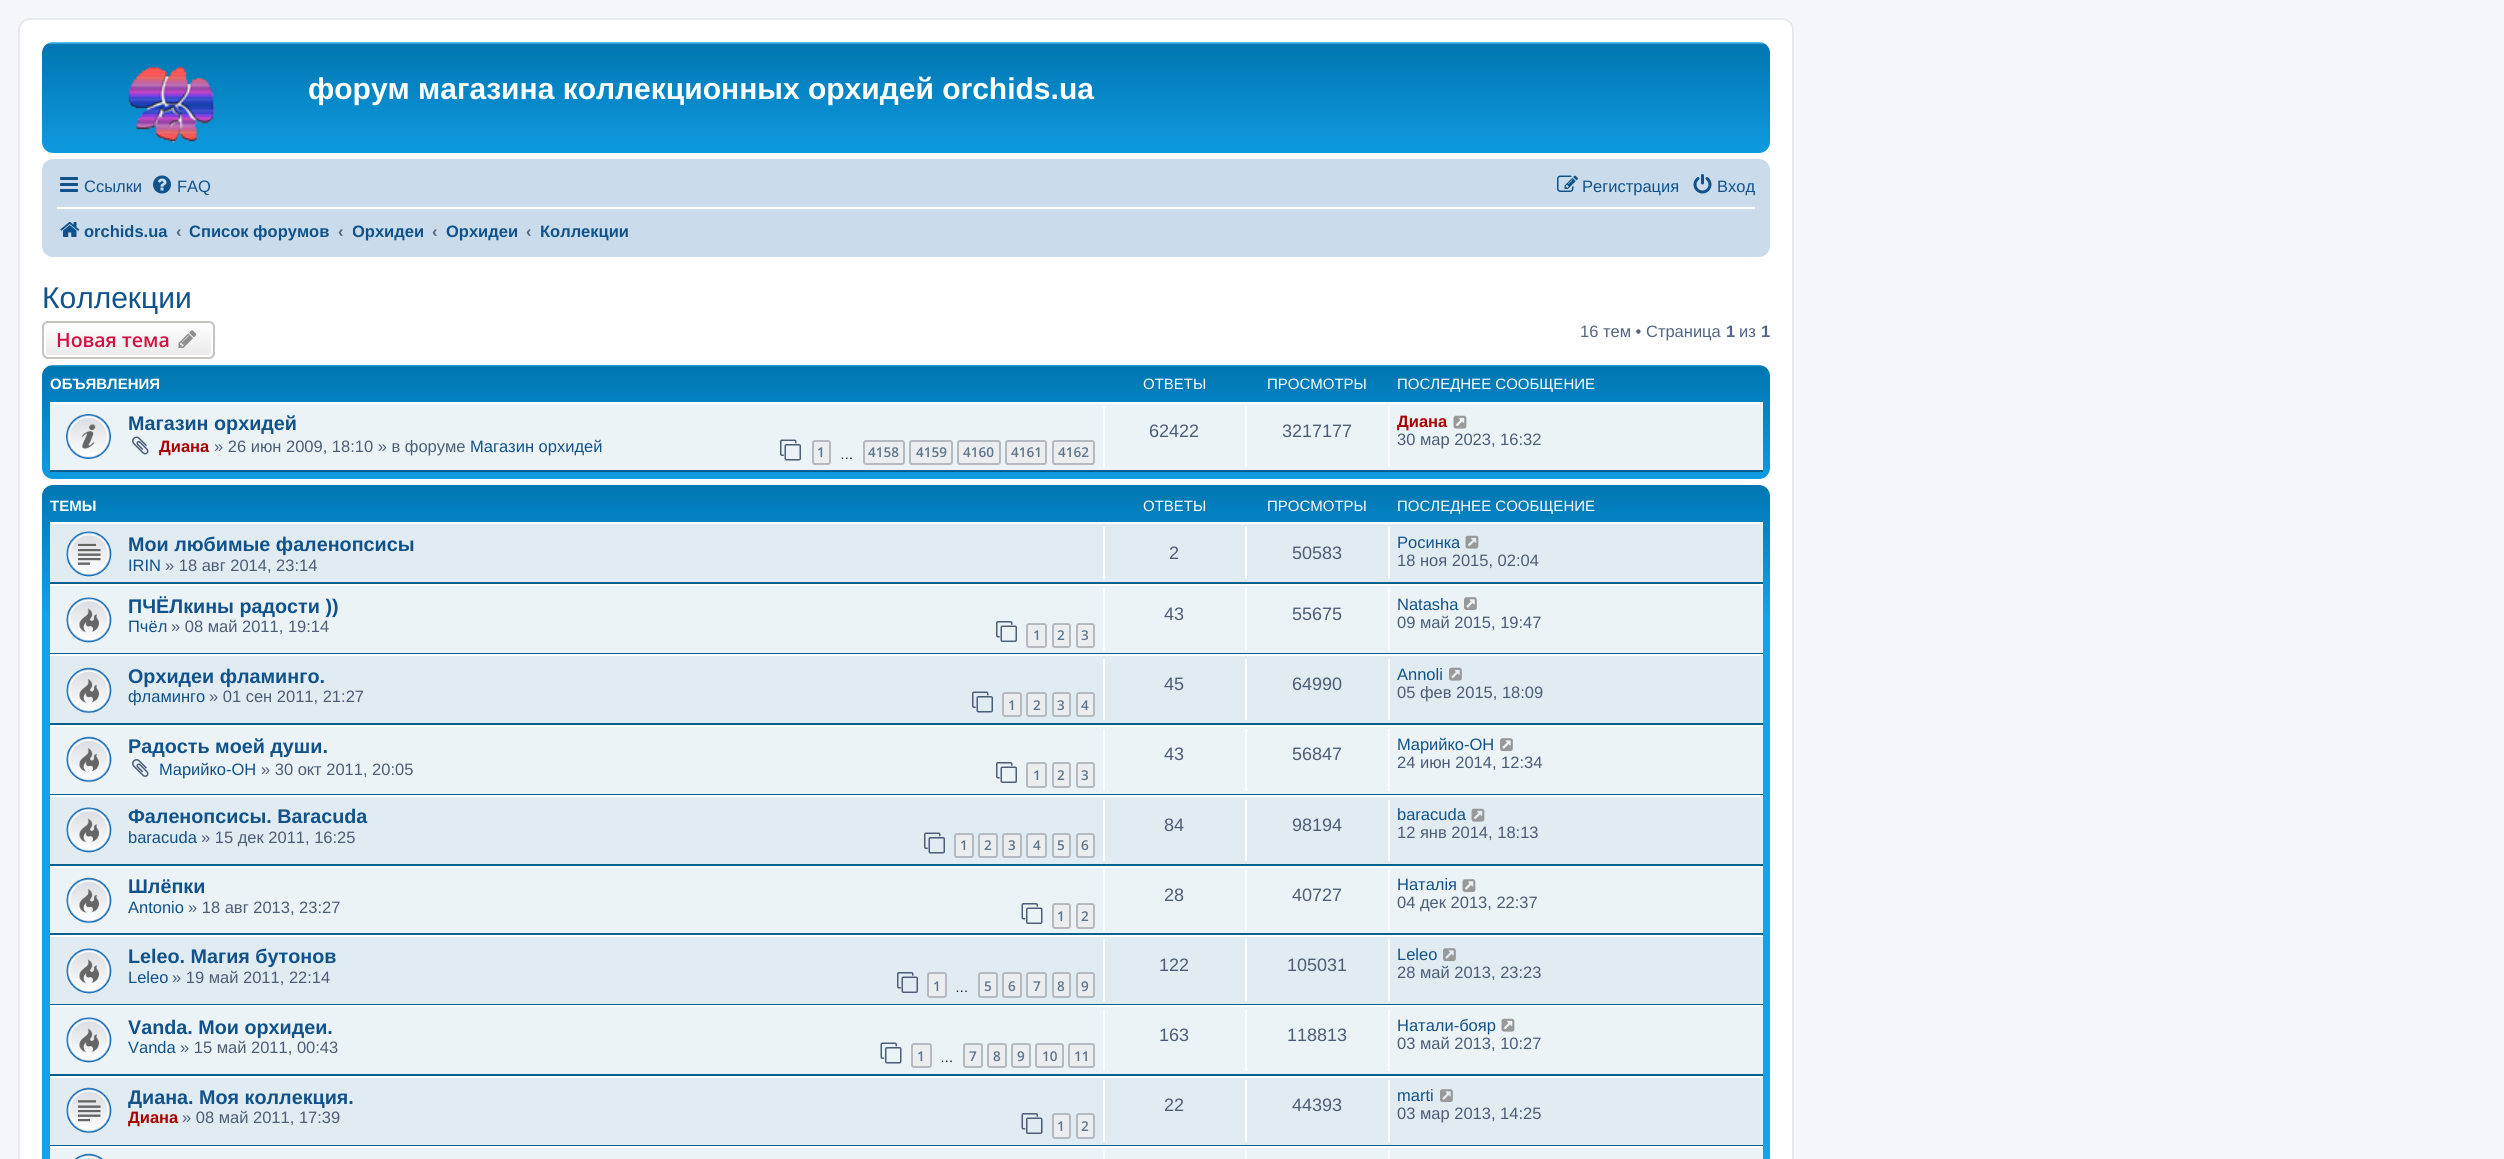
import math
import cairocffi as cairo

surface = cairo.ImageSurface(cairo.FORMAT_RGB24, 2504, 1159)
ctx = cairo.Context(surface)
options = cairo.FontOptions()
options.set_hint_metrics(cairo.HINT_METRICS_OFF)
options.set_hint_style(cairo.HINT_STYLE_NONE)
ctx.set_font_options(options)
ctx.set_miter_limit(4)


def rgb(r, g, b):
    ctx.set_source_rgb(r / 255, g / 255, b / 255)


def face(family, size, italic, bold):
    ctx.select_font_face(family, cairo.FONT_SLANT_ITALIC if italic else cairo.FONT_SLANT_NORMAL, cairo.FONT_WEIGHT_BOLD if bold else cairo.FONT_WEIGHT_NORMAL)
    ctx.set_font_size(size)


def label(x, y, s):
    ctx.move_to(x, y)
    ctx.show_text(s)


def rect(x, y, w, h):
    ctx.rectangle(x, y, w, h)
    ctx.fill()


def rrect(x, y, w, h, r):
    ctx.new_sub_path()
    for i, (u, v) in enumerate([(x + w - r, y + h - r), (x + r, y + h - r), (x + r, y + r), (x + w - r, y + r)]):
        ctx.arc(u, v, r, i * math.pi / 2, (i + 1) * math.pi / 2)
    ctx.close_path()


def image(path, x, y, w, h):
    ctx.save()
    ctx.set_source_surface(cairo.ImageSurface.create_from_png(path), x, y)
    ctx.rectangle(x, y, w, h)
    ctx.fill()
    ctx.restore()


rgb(245, 247, 250)
ctx.paint()
rgb(255, 255, 255)
rrect(19, 19, 1774, 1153, 11)
ctx.fill_preserve()
rgb(230, 233, 237)
ctx.stroke()
gradient = cairo.LinearGradient(906, 42, 906, 180)
gradient.add_color_stop_rgba(0, 0.416, 0.808, 1, 1)
gradient.add_color_stop_rgba(0.02, 0, 0.463, 0.694, 1)
gradient.add_color_stop_rgba(1, 0.071, 0.639, 0.922, 1)
ctx.set_source(gradient)
rrect(42, 42, 1728, 111, 11)
ctx.fill()
image('image0.png', 128, 67, 87, 76)
face('Liberation Sans', 30, 0, 1)
rgb(255, 255, 255)
label(308, 99, 'форум магазина коллекционных орхидей orchids.ua')
rgb(202, 220, 235)
rrect(42, 159, 1728, 98, 11)
ctx.fill()
image('image1.png', 60, 177, 18, 15)
face('Liberation Sans', 16.5, 0, 0)
rgb(16, 82, 137)
label(84, 192, 'Ссылки')
image('image2.png', 153, 175, 18, 19)
label(177, 192, 'FAQ')
image('image3.png', 1557, 175, 21, 17)
label(1582, 192, 'Регистрация')
image('image4.png', 1693, 174, 19, 20)
label(1717, 192, 'Вход')
rgb(255, 255, 255)
rect(57, 207, 1698, 2)
image('image5.png', 60, 222, 20, 15)
face('Liberation Sans', 16.5, 0, 1)
rgb(16, 82, 137)
label(84, 237, 'orchids.ua')
rgb(83, 100, 130)
label(176, 237, '‹')
rgb(16, 82, 137)
label(189, 237, 'Список форумов')
rgb(83, 100, 130)
label(338, 237, '‹')
ctx.save()
ctx.rectangle(353, 213, 72, 36)
ctx.clip()
rgb(16, 82, 137)
label(352, 237, 'Орхидеи')
ctx.restore()
label(432, 237, '‹')
rgb(16, 82, 137)
label(446, 237, 'Орхидеи')
rgb(83, 100, 130)
label(526, 237, '‹')
rgb(16, 82, 137)
label(540, 237, 'Коллекции')
face('Liberation Sans', 30, 0, 0)
label(42, 308, 'Коллекции')
ctx.save()
rrect(42, 321, 173, 38, 6)
ctx.clip()
gradient = cairo.LinearGradient(128, 323, 128, 357)
gradient.add_color_stop_rgba(0, 1, 1, 1, 1)
gradient.add_color_stop_rgba(1, 0.914, 0.914, 0.914, 1)
ctx.set_source(gradient)
rect(42, 323, 173, 34)
ctx.restore()
rrect(45, 324, 167, 32, 4)
rgb(255, 255, 255)
ctx.stroke()
rrect(43, 322, 171, 36, 5)
rgb(199, 195, 191)
ctx.stroke()
face('Open Sans SemiBold', 19.5, 0, 0)
rgb(211, 17, 65)
label(56, 347, 'Новая тема')
image('image6.png', 178, 330, 19, 18)
face('Liberation Sans', 16.5, 0, 0)
rgb(83, 100, 130)
label(1580, 337, '16 тем • Страница')
face('Liberation Sans', 16.5, 0, 1)
label(1726, 337, '1')
face('Liberation Sans', 16.5, 0, 0)
label(1739, 337, 'из')
face('Liberation Sans', 16.5, 0, 1)
label(1761, 337, '1')
gradient = cairo.LinearGradient(906, 364, 906, 502)
gradient.add_color_stop_rgba(0, 0.416, 0.808, 1, 1)
gradient.add_color_stop_rgba(0.02, 0, 0.463, 0.694, 1)
gradient.add_color_stop_rgba(1, 0.071, 0.639, 0.922, 1)
ctx.set_source(gradient)
rrect(42, 365, 1728, 114, 11)
ctx.fill()
face('Liberation Sans', 15, 0, 1)
rgb(255, 255, 255)
label(50, 389, 'ОБЪЯВЛЕНИЯ')
face('Liberation Sans', 15, 0, 0)
label(1143, 389, 'ОТВЕТЫ')
label(1267, 389, 'ПРОСМОТРЫ')
label(1397, 389, 'ПОСЛЕДНЕЕ СООБЩЕНИЕ')
rgb(236, 243, 247)
rect(50, 404, 1713, 66)
rgb(255, 255, 255)
rect(50, 402, 1713, 2)
rgb(0, 96, 143)
rect(50, 470, 1713, 2)
image('image7.png', 66, 414, 45, 45)
face('Liberation Sans', 19.75, 0, 1)
rgb(16, 82, 137)
label(128, 430, 'Магазин орхидей')
image('image8.png', 132, 436, 17, 19)
face('Liberation Sans', 16.5, 0, 1)
rgb(170, 0, 0)
label(159, 452, 'Диана')
face('Liberation Sans', 16.5, 0, 0)
rgb(76, 93, 119)
label(214, 452, '» 26 июн 2009, 18:10 » в форуме')
rgb(16, 82, 137)
label(470, 452, 'Магазин орхидей')
image('image9.png', 780, 439, 21, 22)
rgb(236, 237, 238)
rrect(813, 441, 17, 23, 2)
ctx.fill_preserve()
rgb(180, 186, 192)
ctx.stroke()
face('Open Sans SemiBold', 13.5, 0, 0)
rgb(92, 117, 140)
label(817, 457, '1')
face('Liberation Sans', 13.5, 0, 0)
rgb(0, 0, 0)
label(840, 459, '…')
rgb(236, 237, 238)
rrect(864, 441, 40, 23, 2)
ctx.fill_preserve()
rgb(180, 186, 192)
ctx.stroke()
face('Open Sans SemiBold', 13.5, 0, 0)
rgb(92, 117, 140)
label(868, 457, '4158')
rgb(236, 237, 238)
rrect(910, 441, 42, 23, 2)
ctx.fill_preserve()
rgb(180, 186, 192)
ctx.stroke()
rgb(92, 117, 140)
label(916, 457, '4159')
rgb(236, 237, 238)
rrect(958, 441, 42, 23, 2)
ctx.fill_preserve()
rgb(180, 186, 192)
ctx.stroke()
rgb(92, 117, 140)
label(963, 457, '4160')
rgb(236, 237, 238)
rrect(1006, 441, 40, 23, 2)
ctx.fill_preserve()
rgb(180, 186, 192)
ctx.stroke()
rgb(92, 117, 140)
label(1011, 457, '4161')
rgb(236, 237, 238)
rrect(1053, 441, 41, 23, 2)
ctx.fill_preserve()
rgb(180, 186, 192)
ctx.stroke()
rgb(92, 117, 140)
label(1058, 457, '4162')
rgb(255, 255, 255)
rect(1103, 407, 2, 60)
face('Liberation Sans', 18, 0, 0)
rgb(76, 93, 119)
label(1149, 437, '62422')
rgb(255, 255, 255)
rect(1245, 407, 2, 60)
rgb(76, 93, 119)
label(1282, 437, '3217177')
rgb(255, 255, 255)
rect(1388, 407, 2, 60)
face('Liberation Sans', 16.5, 0, 1)
rgb(170, 0, 0)
label(1397, 427, 'Диана')
image('image10.png', 1453, 415, 14, 14)
face('Liberation Sans', 16.5, 0, 0)
rgb(76, 93, 119)
label(1397, 445, '30 мар 2023, 16:32')
gradient = cairo.LinearGradient(906, 484, 906, 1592)
gradient.add_color_stop_rgba(0, 0.416, 0.808, 1, 1)
gradient.add_color_stop_rgba(0, 0, 0.463, 0.694, 1)
gradient.add_color_stop_rgba(0.12, 0.071, 0.639, 0.922, 1)
gradient.add_color_stop_rgba(1, 0.071, 0.639, 0.922, 1)
ctx.set_source(gradient)
rrect(42, 485, 1728, 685, 11)
ctx.fill()
ctx.save()
ctx.rectangle(50, 492, 1713, 30)
ctx.clip()
face('Liberation Sans', 15, 0, 1)
rgb(255, 255, 255)
label(50, 511, 'ТЕМЫ')
ctx.restore()
face('Liberation Sans', 15, 0, 0)
rgb(255, 255, 255)
label(1143, 511, 'ОТВЕТЫ')
label(1267, 511, 'ПРОСМОТРЫ')
label(1397, 511, 'ПОСЛЕДНЕЕ СООБЩЕНИЕ')
rgb(225, 235, 242)
rect(50, 524, 1713, 58)
rgb(255, 255, 255)
rect(50, 522, 1713, 2)
rgb(0, 96, 143)
rect(50, 582, 1713, 2)
image('image11.png', 66, 531, 46, 46)
face('Liberation Sans', 19.75, 0, 1)
rgb(16, 82, 137)
label(128, 551, 'Мои любимые фаленопсисы')
face('Liberation Sans', 16.5, 0, 0)
label(128, 571, 'IRIN')
rgb(76, 93, 119)
label(165, 571, '» 18 авг 2014, 23:14')
rgb(255, 255, 255)
rect(1103, 527, 2, 52)
face('Liberation Sans', 18, 0, 0)
rgb(76, 93, 119)
label(1169, 559, '2')
rgb(255, 255, 255)
rect(1245, 527, 2, 52)
rgb(76, 93, 119)
label(1292, 559, '50583')
rgb(255, 255, 255)
rect(1388, 527, 2, 52)
face('Liberation Sans', 16.5, 0, 0)
rgb(16, 82, 137)
label(1397, 548, 'Росинка')
image('image12.png', 1465, 535, 14, 14)
rgb(76, 93, 119)
label(1397, 566, '18 ноя 2015, 02:04')
rgb(236, 243, 247)
rect(50, 586, 1713, 67)
rgb(255, 255, 255)
rect(50, 584, 1713, 2)
rgb(0, 96, 143)
rect(50, 653, 1713, 1)
image('image13.png', 66, 597, 46, 46)
face('Liberation Sans', 19.75, 0, 1)
rgb(16, 82, 137)
label(128, 613, 'ПЧЁЛкины радости ))')
face('Liberation Sans', 16.5, 0, 0)
label(128, 632, 'Пчёл')
rgb(76, 93, 119)
label(171, 632, '» 08 май 2011, 19:14')
image('image14.png', 996, 621, 21, 21)
rgb(236, 237, 238)
rrect(1027, 624, 19, 23, 2)
ctx.fill_preserve()
rgb(180, 186, 192)
ctx.stroke()
face('Open Sans SemiBold', 13.5, 0, 0)
rgb(92, 117, 140)
label(1033, 640, '1')
rgb(236, 237, 238)
rrect(1053, 624, 17, 23, 2)
ctx.fill_preserve()
rgb(180, 186, 192)
ctx.stroke()
rgb(92, 117, 140)
label(1057, 640, '2')
rgb(236, 237, 238)
rrect(1077, 624, 17, 23, 2)
ctx.fill_preserve()
rgb(180, 186, 192)
ctx.stroke()
rgb(92, 117, 140)
label(1081, 640, '3')
rgb(255, 255, 255)
rect(1103, 588, 2, 62)
face('Liberation Sans', 18, 0, 0)
rgb(76, 93, 119)
label(1164, 620, '43')
rgb(255, 255, 255)
rect(1245, 588, 2, 62)
rgb(76, 93, 119)
label(1292, 620, '55675')
rgb(255, 255, 255)
rect(1388, 588, 2, 62)
face('Liberation Sans', 16.5, 0, 0)
rgb(16, 82, 137)
label(1397, 610, 'Natasha')
image('image15.png', 1464, 597, 13, 14)
rgb(76, 93, 119)
label(1397, 628, '09 май 2015, 19:47')
rgb(225, 235, 242)
rect(50, 656, 1713, 67)
rgb(255, 255, 255)
rect(50, 654, 1713, 2)
rgb(0, 96, 143)
rect(50, 723, 1713, 2)
image('image16.png', 66, 667, 46, 47)
face('Liberation Sans', 19.75, 0, 1)
rgb(16, 82, 137)
label(128, 683, 'Орхидеи фламинго.')
face('Liberation Sans', 16.5, 0, 0)
label(128, 702, 'фламинго')
rgb(76, 93, 119)
label(209, 702, '» 01 сен 2011, 21:27')
image('image17.png', 972, 691, 21, 22)
rgb(236, 237, 238)
rrect(1003, 693, 18, 23, 2)
ctx.fill_preserve()
rgb(180, 186, 192)
ctx.stroke()
face('Open Sans SemiBold', 13.5, 0, 0)
rgb(92, 117, 140)
label(1008, 710, '1')
rgb(236, 237, 238)
rrect(1027, 693, 19, 23, 2)
ctx.fill_preserve()
rgb(180, 186, 192)
ctx.stroke()
rgb(92, 117, 140)
label(1033, 710, '2')
rgb(236, 237, 238)
rrect(1053, 693, 17, 23, 2)
ctx.fill_preserve()
rgb(180, 186, 192)
ctx.stroke()
rgb(92, 117, 140)
label(1057, 710, '3')
rgb(236, 237, 238)
rrect(1077, 693, 17, 23, 2)
ctx.fill_preserve()
rgb(180, 186, 192)
ctx.stroke()
rgb(92, 117, 140)
label(1081, 710, '4')
rgb(255, 255, 255)
rect(1103, 659, 2, 61)
face('Liberation Sans', 18, 0, 0)
rgb(76, 93, 119)
label(1164, 690, '45')
rgb(255, 255, 255)
rect(1245, 659, 2, 61)
rgb(76, 93, 119)
label(1292, 690, '64990')
rgb(255, 255, 255)
rect(1388, 659, 2, 61)
face('Liberation Sans', 16.5, 0, 0)
rgb(16, 82, 137)
label(1397, 680, 'Annoli')
image('image18.png', 1449, 667, 13, 14)
rgb(76, 93, 119)
label(1397, 698, '05 фев 2015, 18:09')
rgb(236, 243, 247)
rect(50, 727, 1713, 67)
rgb(255, 255, 255)
rect(50, 725, 1713, 2)
rgb(0, 96, 143)
rect(50, 794, 1713, 1)
image('image19.png', 66, 736, 46, 47)
face('Liberation Sans', 19.75, 0, 1)
rgb(16, 82, 137)
label(128, 753, 'Радость моей души.')
image('image20.png', 132, 759, 17, 18)
face('Liberation Sans', 16.5, 0, 0)
label(159, 775, 'Марийко-ОН')
rgb(76, 93, 119)
label(261, 775, '» 30 окт 2011, 20:05')
image('image14.png', 996, 762, 21, 21)
rgb(236, 237, 238)
rrect(1027, 763, 19, 24, 2)
ctx.fill_preserve()
rgb(180, 186, 192)
ctx.stroke()
face('Open Sans SemiBold', 13.5, 0, 0)
rgb(92, 117, 140)
label(1033, 780, '1')
rgb(236, 237, 238)
rrect(1053, 763, 17, 24, 2)
ctx.fill_preserve()
rgb(180, 186, 192)
ctx.stroke()
rgb(92, 117, 140)
label(1057, 780, '2')
rgb(236, 237, 238)
rrect(1077, 763, 17, 24, 2)
ctx.fill_preserve()
rgb(180, 186, 192)
ctx.stroke()
rgb(92, 117, 140)
label(1081, 780, '3')
rgb(255, 255, 255)
rect(1103, 729, 2, 62)
face('Liberation Sans', 18, 0, 0)
rgb(76, 93, 119)
label(1164, 760, '43')
rgb(255, 255, 255)
rect(1245, 729, 2, 62)
rgb(76, 93, 119)
label(1292, 760, '56847')
rgb(255, 255, 255)
rect(1388, 729, 2, 62)
face('Liberation Sans', 16.5, 0, 0)
rgb(16, 82, 137)
label(1397, 750, 'Марийко-ОН')
image('image15.png', 1500, 738, 13, 14)
rgb(76, 93, 119)
label(1397, 768, '24 июн 2014, 12:34')
rgb(225, 235, 242)
rect(50, 797, 1713, 67)
rgb(255, 255, 255)
rect(50, 795, 1713, 2)
rgb(0, 96, 143)
rect(50, 864, 1713, 2)
image('image21.png', 66, 807, 46, 46)
face('Liberation Sans', 19.75, 0, 1)
rgb(16, 82, 137)
label(128, 823, 'Фаленопсисы. Baracuda')
face('Liberation Sans', 16.5, 0, 0)
label(128, 843, 'baracuda')
rgb(76, 93, 119)
label(201, 843, '» 15 дек 2011, 16:25')
image('image17.png', 924, 832, 21, 22)
rgb(236, 237, 238)
rrect(955, 834, 18, 23, 2)
ctx.fill_preserve()
rgb(180, 186, 192)
ctx.stroke()
face('Open Sans SemiBold', 13.5, 0, 0)
rgb(92, 117, 140)
label(960, 850, '1')
rgb(236, 237, 238)
rrect(979, 834, 18, 23, 2)
ctx.fill_preserve()
rgb(180, 186, 192)
ctx.stroke()
rgb(92, 117, 140)
label(984, 850, '2')
rgb(236, 237, 238)
rrect(1003, 834, 18, 23, 2)
ctx.fill_preserve()
rgb(180, 186, 192)
ctx.stroke()
rgb(92, 117, 140)
label(1008, 850, '3')
rgb(236, 237, 238)
rrect(1027, 834, 19, 23, 2)
ctx.fill_preserve()
rgb(180, 186, 192)
ctx.stroke()
rgb(92, 117, 140)
label(1033, 850, '4')
rgb(236, 237, 238)
rrect(1053, 834, 17, 23, 2)
ctx.fill_preserve()
rgb(180, 186, 192)
ctx.stroke()
rgb(92, 117, 140)
label(1057, 850, '5')
rgb(236, 237, 238)
rrect(1077, 834, 17, 23, 2)
ctx.fill_preserve()
rgb(180, 186, 192)
ctx.stroke()
rgb(92, 117, 140)
label(1081, 850, '6')
rgb(255, 255, 255)
rect(1103, 800, 2, 61)
face('Liberation Sans', 18, 0, 0)
rgb(76, 93, 119)
label(1164, 831, '84')
rgb(255, 255, 255)
rect(1245, 800, 2, 61)
rgb(76, 93, 119)
label(1292, 831, '98194')
rgb(255, 255, 255)
rect(1388, 800, 2, 61)
face('Liberation Sans', 16.5, 0, 0)
rgb(16, 82, 137)
label(1397, 820, 'baracuda')
image('image12.png', 1471, 808, 14, 14)
rgb(76, 93, 119)
label(1397, 838, '12 янв 2014, 18:13')
rgb(236, 243, 247)
rect(50, 868, 1713, 65)
rgb(255, 255, 255)
rect(50, 866, 1713, 2)
rgb(0, 96, 143)
rect(50, 933, 1713, 2)
image('image19.png', 66, 877, 46, 47)
face('Liberation Sans', 19.75, 0, 1)
rgb(16, 82, 137)
label(128, 893, 'Шлёпки')
face('Liberation Sans', 16.5, 0, 0)
label(128, 913, 'Antonio')
rgb(76, 93, 119)
label(188, 913, '» 18 авг 2013, 23:27')
image('image22.png', 1021, 903, 22, 21)
rgb(236, 237, 238)
rrect(1053, 904, 17, 24, 2)
ctx.fill_preserve()
rgb(180, 186, 192)
ctx.stroke()
face('Open Sans SemiBold', 13.5, 0, 0)
rgb(92, 117, 140)
label(1057, 921, '1')
rgb(236, 237, 238)
rrect(1077, 904, 17, 24, 2)
ctx.fill_preserve()
rgb(180, 186, 192)
ctx.stroke()
rgb(92, 117, 140)
label(1081, 921, '2')
rgb(255, 255, 255)
rect(1103, 870, 2, 60)
face('Liberation Sans', 18, 0, 0)
rgb(76, 93, 119)
label(1164, 901, '28')
rgb(255, 255, 255)
rect(1245, 870, 2, 60)
rgb(76, 93, 119)
label(1292, 901, '40727')
rgb(255, 255, 255)
rect(1388, 870, 2, 60)
face('Liberation Sans', 16.5, 0, 0)
rgb(16, 82, 137)
label(1397, 890, 'Наталія')
image('image23.png', 1462, 879, 14, 14)
rgb(76, 93, 119)
label(1397, 908, '04 дек 2013, 22:37')
rgb(225, 235, 242)
rect(50, 937, 1713, 67)
rgb(255, 255, 255)
rect(50, 935, 1713, 2)
rgb(0, 96, 143)
rect(50, 1004, 1713, 1)
image('image21.png', 66, 948, 46, 46)
face('Liberation Sans', 19.75, 0, 1)
rgb(16, 82, 137)
label(128, 963, 'Leleo. Магия бутонов')
face('Liberation Sans', 16.5, 0, 0)
label(128, 983, 'Leleo')
rgb(76, 93, 119)
label(172, 983, '» 19 май 2011, 22:14')
image('image24.png', 897, 972, 21, 21)
rgb(236, 237, 238)
rrect(928, 973, 18, 24, 2)
ctx.fill_preserve()
rgb(180, 186, 192)
ctx.stroke()
face('Open Sans SemiBold', 13.5, 0, 0)
rgb(92, 117, 140)
label(933, 991, '1')
face('Liberation Sans', 13.5, 0, 0)
rgb(0, 0, 0)
label(955, 992, '…')
rgb(236, 237, 238)
rrect(979, 973, 18, 24, 2)
ctx.fill_preserve()
rgb(180, 186, 192)
ctx.stroke()
face('Open Sans SemiBold', 13.5, 0, 0)
rgb(92, 117, 140)
label(984, 991, '5')
rgb(236, 237, 238)
rrect(1003, 973, 18, 24, 2)
ctx.fill_preserve()
rgb(180, 186, 192)
ctx.stroke()
rgb(92, 117, 140)
label(1008, 991, '6')
rgb(236, 237, 238)
rrect(1027, 973, 19, 24, 2)
ctx.fill_preserve()
rgb(180, 186, 192)
ctx.stroke()
rgb(92, 117, 140)
label(1033, 991, '7')
rgb(236, 237, 238)
rrect(1053, 973, 17, 24, 2)
ctx.fill_preserve()
rgb(180, 186, 192)
ctx.stroke()
rgb(92, 117, 140)
label(1057, 991, '8')
rgb(236, 237, 238)
rrect(1077, 973, 17, 24, 2)
ctx.fill_preserve()
rgb(180, 186, 192)
ctx.stroke()
rgb(92, 117, 140)
label(1081, 991, '9')
rgb(255, 255, 255)
rect(1103, 939, 2, 62)
face('Liberation Sans', 18, 0, 0)
rgb(76, 93, 119)
label(1159, 971, '122')
rgb(255, 255, 255)
rect(1245, 939, 2, 62)
rgb(76, 93, 119)
label(1287, 971, '105031')
rgb(255, 255, 255)
rect(1388, 939, 2, 62)
face('Liberation Sans', 16.5, 0, 0)
rgb(16, 82, 137)
label(1397, 960, 'Leleo')
image('image25.png', 1443, 948, 13, 14)
rgb(76, 93, 119)
label(1397, 978, '28 май 2013, 23:23')
rgb(236, 243, 247)
rect(50, 1007, 1713, 67)
rgb(255, 255, 255)
rect(50, 1005, 1713, 2)
rgb(0, 96, 143)
rect(50, 1074, 1713, 2)
image('image13.png', 66, 1017, 46, 46)
face('Liberation Sans', 19.75, 0, 1)
rgb(16, 82, 137)
label(128, 1034, 'Vanda. Мои орхидеи.')
face('Liberation Sans', 16.5, 0, 0)
label(128, 1053, 'Vanda')
rgb(76, 93, 119)
label(180, 1053, '» 15 май 2011, 00:43')
image('image26.png', 880, 1042, 22, 22)
rgb(236, 237, 238)
rrect(912, 1044, 19, 23, 2)
ctx.fill_preserve()
rgb(180, 186, 192)
ctx.stroke()
face('Open Sans SemiBold', 13.5, 0, 0)
rgb(92, 117, 140)
label(917, 1061, '1')
face('Liberation Sans', 13.5, 0, 0)
rgb(0, 0, 0)
label(940, 1062, '…')
rgb(236, 237, 238)
rrect(964, 1044, 18, 23, 2)
ctx.fill_preserve()
rgb(180, 186, 192)
ctx.stroke()
face('Open Sans SemiBold', 13.5, 0, 0)
rgb(92, 117, 140)
label(969, 1061, '7')
rgb(236, 237, 238)
rrect(988, 1044, 18, 23, 2)
ctx.fill_preserve()
rgb(180, 186, 192)
ctx.stroke()
rgb(92, 117, 140)
label(993, 1061, '8')
rgb(236, 237, 238)
rrect(1012, 1044, 18, 23, 2)
ctx.fill_preserve()
rgb(180, 186, 192)
ctx.stroke()
rgb(92, 117, 140)
label(1017, 1061, '9')
rgb(236, 237, 238)
rrect(1036, 1044, 27, 23, 2)
ctx.fill_preserve()
rgb(180, 186, 192)
ctx.stroke()
rgb(92, 117, 140)
label(1042, 1061, '10')
rgb(236, 237, 238)
rrect(1069, 1044, 25, 23, 2)
ctx.fill_preserve()
rgb(180, 186, 192)
ctx.stroke()
rgb(92, 117, 140)
label(1074, 1061, '11')
rgb(255, 255, 255)
rect(1103, 1010, 2, 61)
face('Liberation Sans', 18, 0, 0)
rgb(76, 93, 119)
label(1159, 1041, '163')
rgb(255, 255, 255)
rect(1245, 1010, 2, 61)
rgb(76, 93, 119)
label(1287, 1041, '118813')
rgb(255, 255, 255)
rect(1388, 1010, 2, 61)
face('Liberation Sans', 16.5, 0, 0)
rgb(16, 82, 137)
label(1397, 1031, 'Натали-бояр')
image('image10.png', 1501, 1018, 14, 14)
rgb(76, 93, 119)
label(1397, 1049, '03 май 2013, 10:27')
rgb(225, 235, 242)
rect(50, 1078, 1713, 67)
rgb(255, 255, 255)
rect(50, 1076, 1713, 2)
rgb(0, 96, 143)
rect(50, 1145, 1713, 1)
image('image27.png', 66, 1087, 46, 47)
face('Liberation Sans', 19.75, 0, 1)
rgb(16, 82, 137)
label(128, 1104, 'Диана. Моя коллекция.')
face('Liberation Sans', 16.5, 0, 1)
rgb(170, 0, 0)
label(128, 1123, 'Диана')
face('Liberation Sans', 16.5, 0, 0)
rgb(76, 93, 119)
label(182, 1123, '» 08 май 2011, 17:39')
image('image28.png', 1021, 1113, 22, 21)
rgb(236, 237, 238)
rrect(1053, 1114, 17, 24, 2)
ctx.fill_preserve()
rgb(180, 186, 192)
ctx.stroke()
face('Open Sans SemiBold', 13.5, 0, 0)
rgb(92, 117, 140)
label(1057, 1131, '1')
rgb(236, 237, 238)
rrect(1077, 1114, 17, 24, 2)
ctx.fill_preserve()
rgb(180, 186, 192)
ctx.stroke()
rgb(92, 117, 140)
label(1081, 1131, '2')
rgb(255, 255, 255)
rect(1103, 1080, 2, 62)
face('Liberation Sans', 18, 0, 0)
rgb(76, 93, 119)
label(1164, 1111, '22')
rgb(255, 255, 255)
rect(1245, 1080, 2, 62)
rgb(76, 93, 119)
label(1292, 1111, '44393')
rgb(255, 255, 255)
rect(1388, 1080, 2, 62)
face('Liberation Sans', 16.5, 0, 0)
rgb(16, 82, 137)
label(1397, 1101, 'marti')
image('image25.png', 1440, 1089, 13, 14)
rgb(76, 93, 119)
label(1397, 1119, '03 мар 2013, 14:25')
rgb(236, 243, 247)
rect(50, 1148, 1713, 11)
rgb(255, 255, 255)
rect(50, 1146, 1713, 2)
image('image29.png', 74, 1153, 30, 6)
rect(1103, 1151, 2, 8)
rect(1245, 1151, 2, 8)
rect(1388, 1151, 2, 8)
surface.write_to_png('render.png')
